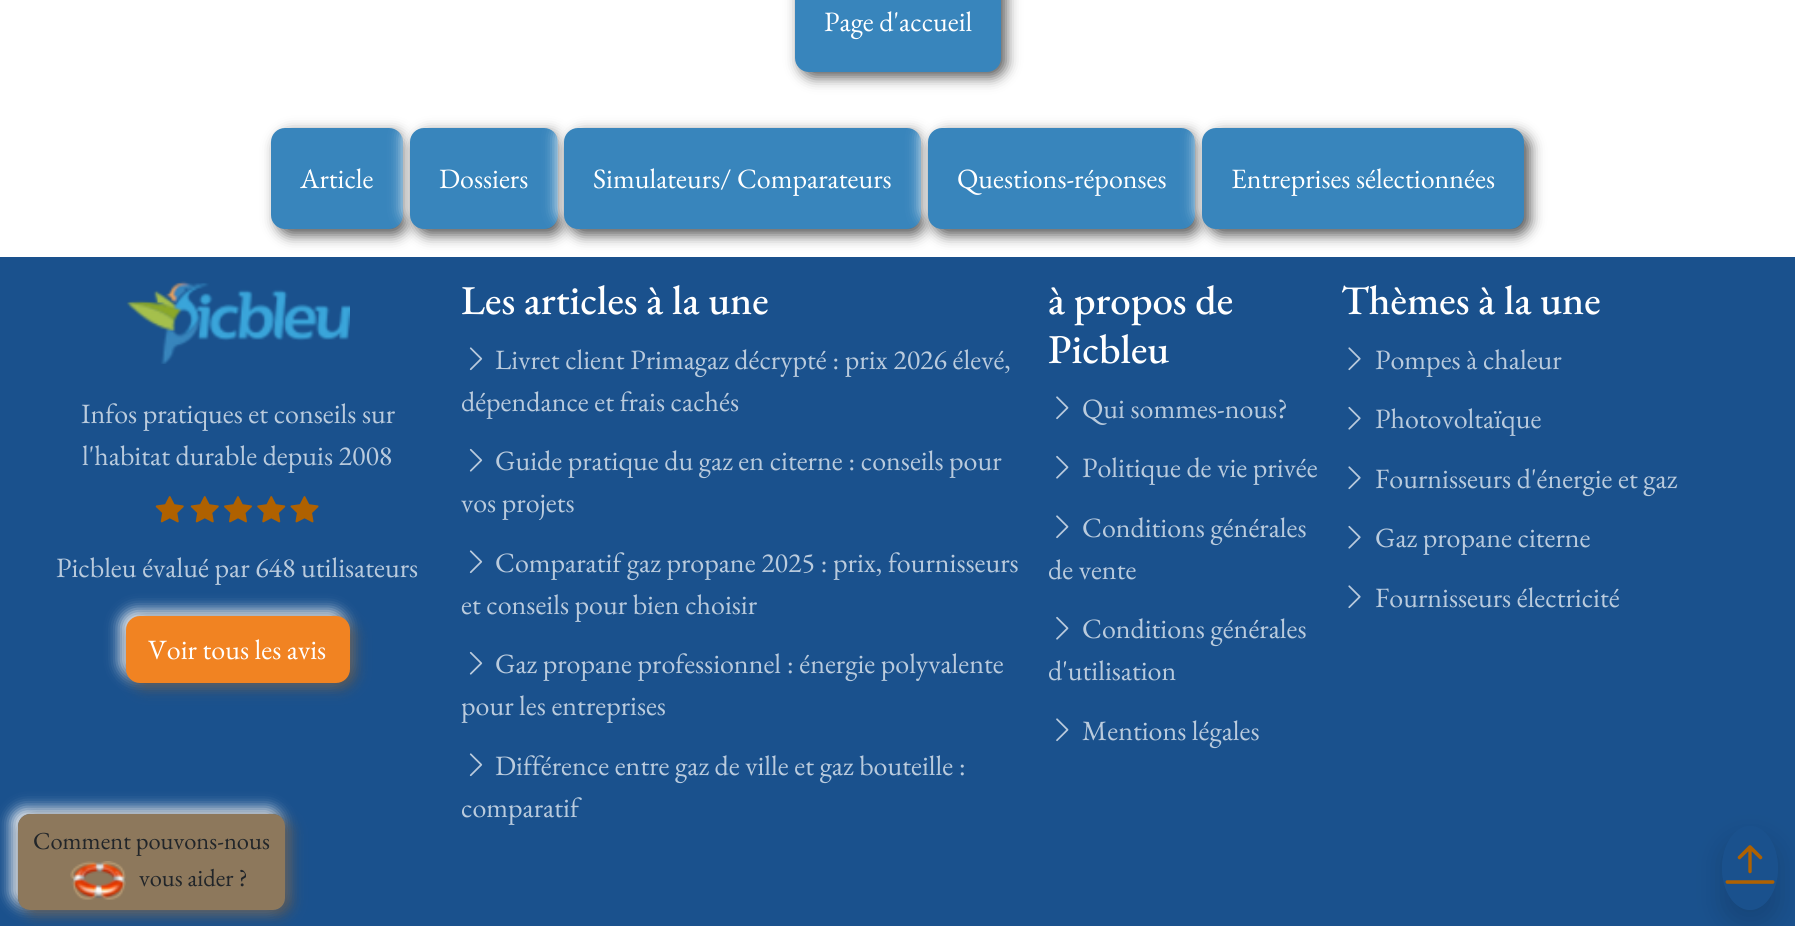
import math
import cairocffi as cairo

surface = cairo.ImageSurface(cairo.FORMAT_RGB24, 1795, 926)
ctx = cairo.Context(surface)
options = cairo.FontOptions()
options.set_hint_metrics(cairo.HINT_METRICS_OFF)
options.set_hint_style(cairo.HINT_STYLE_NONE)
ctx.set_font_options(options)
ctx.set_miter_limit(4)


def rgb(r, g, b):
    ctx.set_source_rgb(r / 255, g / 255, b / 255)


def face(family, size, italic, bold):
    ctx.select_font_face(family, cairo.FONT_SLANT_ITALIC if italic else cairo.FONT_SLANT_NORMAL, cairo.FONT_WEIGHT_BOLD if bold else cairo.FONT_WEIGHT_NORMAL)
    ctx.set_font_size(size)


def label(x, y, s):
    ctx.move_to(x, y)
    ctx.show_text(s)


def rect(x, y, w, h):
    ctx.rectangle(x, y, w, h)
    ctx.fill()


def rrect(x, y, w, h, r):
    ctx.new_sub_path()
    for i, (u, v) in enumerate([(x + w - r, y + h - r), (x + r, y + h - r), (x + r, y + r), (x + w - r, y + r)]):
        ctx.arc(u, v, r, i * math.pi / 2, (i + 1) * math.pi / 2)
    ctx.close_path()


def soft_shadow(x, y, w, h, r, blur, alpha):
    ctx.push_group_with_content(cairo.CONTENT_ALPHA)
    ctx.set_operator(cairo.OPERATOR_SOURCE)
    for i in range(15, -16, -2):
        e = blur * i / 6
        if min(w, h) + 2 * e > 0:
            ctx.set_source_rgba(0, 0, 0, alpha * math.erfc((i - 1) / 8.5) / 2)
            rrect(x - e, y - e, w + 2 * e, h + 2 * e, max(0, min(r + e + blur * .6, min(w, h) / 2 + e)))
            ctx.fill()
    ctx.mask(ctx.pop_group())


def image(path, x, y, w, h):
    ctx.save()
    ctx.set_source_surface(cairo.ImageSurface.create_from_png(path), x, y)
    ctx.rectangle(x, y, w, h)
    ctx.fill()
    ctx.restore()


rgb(255, 255, 255)
ctx.paint()
rgb(85, 85, 85)
soft_shadow(800, -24, 206, 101, 14, 7, 1)
rgb(56, 133, 188)
rrect(795, -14, 206, 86, 14)
ctx.fill()
face('EB Garamond', 28, 0, 0)
rgb(255, 255, 255)
label(824, 31, 'Page d\'accueil')
rgb(85, 85, 85)
soft_shadow(277, 133, 131, 102, 14, 7, 1)
rgb(56, 133, 188)
rrect(271, 128, 132, 101, 14)
ctx.fill()
rgb(255, 255, 255)
label(300, 188, 'Article')
rgb(255, 255, 255)
soft_shadow(404, 123, 149, 101, 14, 7, 1)
rgb(85, 85, 85)
soft_shadow(415, 133, 149, 102, 14, 7, 1)
rgb(56, 133, 188)
rrect(410, 128, 148, 101, 14)
ctx.fill()
rgb(255, 255, 255)
label(439, 188, 'Dossiers')
rgb(255, 255, 255)
soft_shadow(558, 123, 357, 101, 14, 7, 1)
rgb(85, 85, 85)
soft_shadow(569, 133, 357, 102, 14, 7, 1)
rgb(56, 133, 188)
rrect(564, 128, 357, 101, 14)
ctx.fill()
rgb(255, 255, 255)
label(593, 188, 'Simulateurs/ Comparateurs')
rgb(255, 255, 255)
soft_shadow(922, 123, 268, 101, 14, 7, 1)
rgb(85, 85, 85)
soft_shadow(933, 133, 268, 102, 14, 7, 1)
rgb(56, 133, 188)
rrect(928, 128, 267, 101, 14)
ctx.fill()
rgb(255, 255, 255)
label(957, 188, 'Questions-réponses')
rgb(255, 255, 255)
soft_shadow(1197, 123, 322, 101, 14, 7, 1)
rgb(85, 85, 85)
soft_shadow(1208, 133, 322, 102, 14, 7, 1)
rgb(56, 133, 188)
rrect(1202, 128, 322, 101, 14)
ctx.fill()
rgb(255, 255, 255)
label(1231, 188, 'Entreprises sélectionnées')
rgb(26, 81, 141)
rect(0, 257, 1795, 669)
image('image0.png', 126, 281, 224, 83)
rgb(186, 203, 221)
label(81, 423, 'Infos pratiques et conseils sur')
label(82, 465, 'l\'habitat durable depuis 2008')
image('image1.png', 155, 496, 29, 27)
image('image1.png', 190, 496, 29, 27)
image('image2.png', 224, 496, 28, 27)
image('image3.png', 257, 496, 29, 27)
image('image4.png', 290, 496, 29, 27)
label(56, 577, 'Picbleu évalué par 648 utilisateurs')
rgb(255, 255, 255)
soft_shadow(121, 611, 224, 66, 14, 7, 1)
rgb(85, 85, 85)
soft_shadow(131, 621, 224, 67, 14, 7, 1)
rgb(241, 131, 34)
rrect(126, 616, 224, 67, 14)
ctx.fill()
rgb(255, 255, 255)
label(148, 659, 'Voir tous les avis')
face('EB Garamond Medium', 41, 0, 0)
label(461, 314, 'Les articles à la une')
image('image5.png', 469, 347, 14, 24)
face('EB Garamond', 28, 0, 0)
rgb(186, 203, 221)
label(495, 369, 'Livret client Primagaz décrypté : prix 2026 élevé,')
label(461, 411, 'dépendance et frais cachés')
image('image6.png', 469, 448, 14, 24)
label(495, 470, 'Guide pratique du gaz en citerne : conseils pour')
label(461, 512, 'vos projets')
image('image5.png', 469, 550, 14, 24)
label(495, 572, 'Comparatif gaz propane 2025 : prix, fournisseurs')
label(461, 614, 'et conseils pour bien choisir')
image('image6.png', 469, 651, 14, 24)
label(495, 673, 'Gaz propane professionnel : énergie polyvalente')
label(461, 715, 'pour les entreprises')
image('image5.png', 469, 753, 14, 24)
label(495, 775, 'Différence entre gaz de ville et gaz bouteille :')
label(461, 817, 'comparatif')
face('EB Garamond Medium', 41, 0, 0)
rgb(255, 255, 255)
label(1048, 314, 'à propos de')
label(1048, 363, 'Picbleu')
image('image7.png', 1056, 396, 13, 24)
face('EB Garamond', 28, 0, 0)
rgb(186, 203, 221)
label(1082, 418, 'Qui sommes-nous?')
image('image8.png', 1056, 455, 13, 24)
label(1082, 477, 'Politique de vie privée')
image('image7.png', 1056, 515, 13, 24)
label(1082, 537, 'Conditions générales')
label(1048, 579, 'de vente')
image('image8.png', 1056, 616, 13, 24)
label(1082, 638, 'Conditions générales')
label(1048, 680, 'd\'utilisation')
image('image7.png', 1056, 718, 13, 24)
label(1082, 740, 'Mentions légales')
face('EB Garamond Medium', 41, 0, 0)
rgb(255, 255, 255)
label(1341, 314, 'Thèmes à la une')
image('image9.png', 1348, 347, 13, 24)
face('EB Garamond', 28, 0, 0)
rgb(186, 203, 221)
label(1375, 369, 'Pompes à chaleur')
image('image10.png', 1348, 406, 13, 24)
label(1375, 428, 'Photovoltaïque')
image('image9.png', 1348, 466, 13, 24)
label(1375, 488, 'Fournisseurs d\'énergie et gaz')
image('image10.png', 1348, 525, 13, 24)
label(1375, 547, 'Gaz propane citerne')
image('image9.png', 1348, 585, 13, 24)
label(1375, 607, 'Fournisseurs électricité')
ctx.save()
ctx.set_fill_rule(cairo.FILL_RULE_EVEN_ODD)
ctx.new_path()
ctx.move_to(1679, 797)
ctx.line_to(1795, 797)
ctx.line_to(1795, 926)
ctx.line_to(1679, 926)
ctx.close_path()
ctx.move_to(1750, 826)
ctx.curve_to(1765.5, 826, 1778, 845, 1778, 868)
ctx.curve_to(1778, 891, 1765.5, 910, 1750, 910)
ctx.curve_to(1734.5, 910, 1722, 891, 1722, 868)
ctx.curve_to(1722, 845, 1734.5, 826, 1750, 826)
ctx.close_path()
ctx.clip()
rgb(0, 0, 0)
soft_shadow(1722, 840, 56, 84, 28, 14, 0.15)
ctx.restore()
image('image11.png', 1725, 845, 50, 39)
ctx.save()
ctx.set_fill_rule(cairo.FILL_RULE_EVEN_ODD)
ctx.new_path()
ctx.move_to(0, 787)
ctx.line_to(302, 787)
ctx.line_to(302, 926)
ctx.line_to(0, 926)
ctx.close_path()
ctx.move_to(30, 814)
ctx.line_to(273, 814)
ctx.curve_to(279.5, 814, 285, 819.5, 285, 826)
ctx.line_to(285, 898)
ctx.curve_to(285, 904.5, 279.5, 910, 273, 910)
ctx.line_to(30, 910)
ctx.curve_to(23.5, 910, 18, 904.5, 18, 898)
ctx.line_to(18, 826)
ctx.curve_to(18, 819.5, 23.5, 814, 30, 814)
ctx.close_path()
ctx.clip()
rgb(255, 255, 255)
soft_shadow(12, 809, 268, 96, 12, 7, 1)
ctx.restore()
ctx.save()
ctx.set_fill_rule(cairo.FILL_RULE_EVEN_ODD)
ctx.new_path()
ctx.move_to(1, 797)
ctx.line_to(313, 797)
ctx.line_to(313, 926)
ctx.line_to(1, 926)
ctx.close_path()
ctx.move_to(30, 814)
ctx.line_to(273, 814)
ctx.curve_to(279.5, 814, 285, 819.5, 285, 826)
ctx.line_to(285, 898)
ctx.curve_to(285, 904.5, 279.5, 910, 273, 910)
ctx.line_to(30, 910)
ctx.curve_to(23.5, 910, 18, 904.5, 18, 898)
ctx.line_to(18, 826)
ctx.curve_to(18, 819.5, 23.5, 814, 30, 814)
ctx.close_path()
ctx.clip()
rgb(85, 85, 85)
soft_shadow(23, 819, 268, 96, 12, 7, 1)
ctx.restore()
ctx.set_source_rgba(1, 0.631, 0.176, 0.5)
rrect(18, 814, 267, 96, 12)
ctx.fill()
face('EB Garamond', 24.5, 0, 0)
rgb(33, 37, 41)
label(33, 849, 'Comment pouvons-nous')
image('image12.png', 70, 861, 56, 39)
label(139, 886, 'vous aider ?')
surface.write_to_png('render.png')
